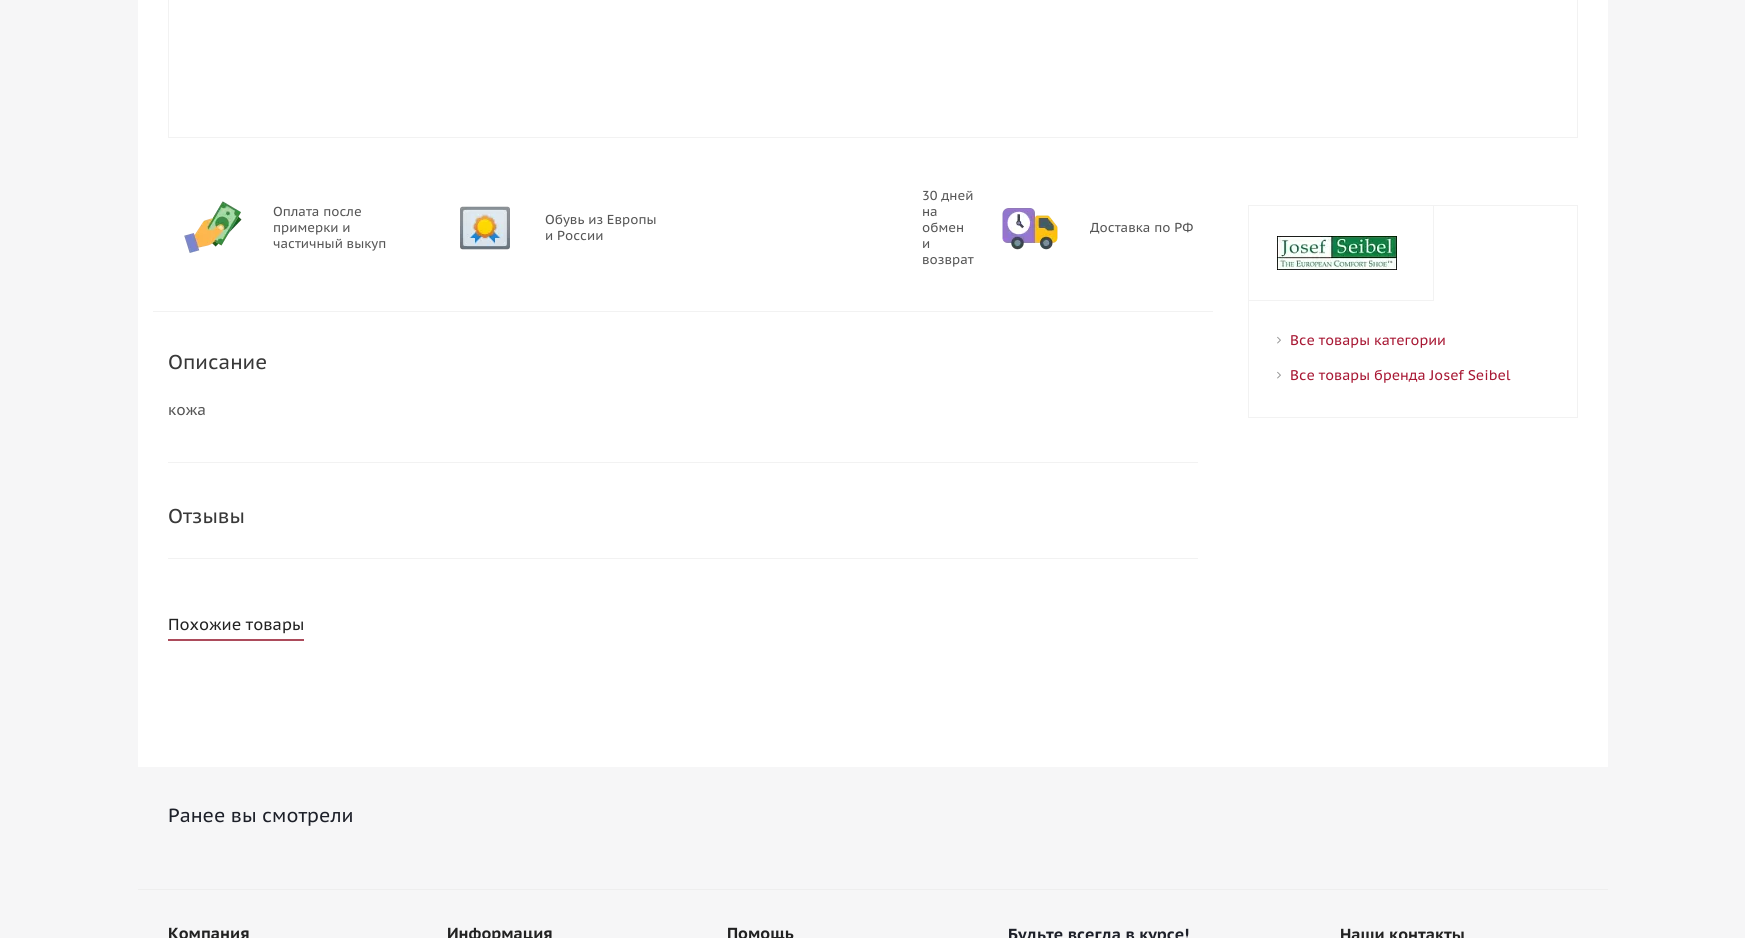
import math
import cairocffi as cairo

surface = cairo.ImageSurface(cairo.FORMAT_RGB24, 1745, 938)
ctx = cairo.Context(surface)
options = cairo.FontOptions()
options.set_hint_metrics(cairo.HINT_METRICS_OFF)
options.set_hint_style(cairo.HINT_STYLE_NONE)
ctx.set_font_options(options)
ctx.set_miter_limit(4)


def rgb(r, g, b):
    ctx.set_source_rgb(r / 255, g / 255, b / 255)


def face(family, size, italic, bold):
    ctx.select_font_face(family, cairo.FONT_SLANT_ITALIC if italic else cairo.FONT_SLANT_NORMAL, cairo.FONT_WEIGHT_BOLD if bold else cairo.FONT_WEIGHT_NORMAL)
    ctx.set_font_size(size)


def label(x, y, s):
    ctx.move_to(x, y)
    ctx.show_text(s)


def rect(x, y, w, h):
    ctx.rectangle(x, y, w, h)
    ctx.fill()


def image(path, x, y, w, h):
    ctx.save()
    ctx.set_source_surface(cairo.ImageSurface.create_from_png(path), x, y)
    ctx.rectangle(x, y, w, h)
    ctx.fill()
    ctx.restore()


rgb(246, 246, 247)
ctx.paint()
rgb(255, 255, 255)
rect(138, 0, 1470, 767)
ctx.rectangle(168.5, -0.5, 1409, 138)
rgb(242, 242, 242)
ctx.set_line_width(1)
ctx.stroke()
rect(153, 311, 1060, 1)
image('image0.png', 184, 201, 58, 52)
face('PT Sans Caption', 13, 0, 0)
rgb(85, 85, 85)
label(273, 216, 'Оплата после')
label(273, 232, 'примерки и')
label(273, 248, 'частичный выкуп')
image('image1.png', 460, 206, 50, 44)
label(545, 224, 'Обувь из Европы')
label(545, 240, 'и России')
label(922, 200, '30 дней')
label(922, 216, 'на')
label(922, 232, 'обмен')
label(922, 248, 'и')
label(922, 264, 'возврат')
image('image2.png', 1002, 208, 56, 42)
label(1090, 232, 'Доставка по РФ')
face('PT Sans Caption', 20, 0, 0)
rgb(56, 56, 56)
label(168, 369, 'Описание')
face('PT Sans Caption', 15, 0, 0)
rgb(85, 85, 85)
label(168, 415, 'кожа')
rgb(242, 242, 242)
rect(168, 462, 1030, 1)
face('PT Sans Caption', 20, 0, 0)
rgb(56, 56, 56)
label(168, 523, 'Отзывы')
rgb(242, 242, 242)
rect(168, 558, 1030, 1)
rgb(172, 75, 91)
rect(168, 639, 136, 2)
face('PT Sans Caption', 16, 0, 0)
rgb(34, 34, 34)
label(168, 630, 'Похожие товары')
ctx.rectangle(1248.5, 205.5, 329, 212)
rgb(242, 242, 242)
ctx.stroke()
ctx.rectangle(1248.5, 205.5, 185, 95)
ctx.stroke()
image('image3.png', 1277, 236, 120, 34)
image('image4.png', 1277, 336, 4, 8)
face('PT Sans Caption', 14, 0, 0)
rgb(168, 24, 52)
label(1290, 345, 'Все товары категории')
image('image4.png', 1277, 371, 4, 8)
label(1290, 380, 'Все товары бренда Josef Seibel')
rgb(238, 238, 238)
rect(138, 889, 1470, 1)
face('PT Sans Caption', 19, 0, 0)
rgb(29, 32, 41)
label(168, 822, 'Ранее вы смотрели')
face('PT Sans Caption', 16, 0, 1)
rgb(34, 34, 34)
label(168, 939, 'Компания')
label(447, 939, 'Информация')
label(727, 939, 'Помощь')
rgb(29, 32, 41)
label(1008, 940, 'Будьте всегда в курсе!')
rgb(34, 34, 34)
label(1340, 940, 'Наши контакты')
surface.write_to_png('render.png')
